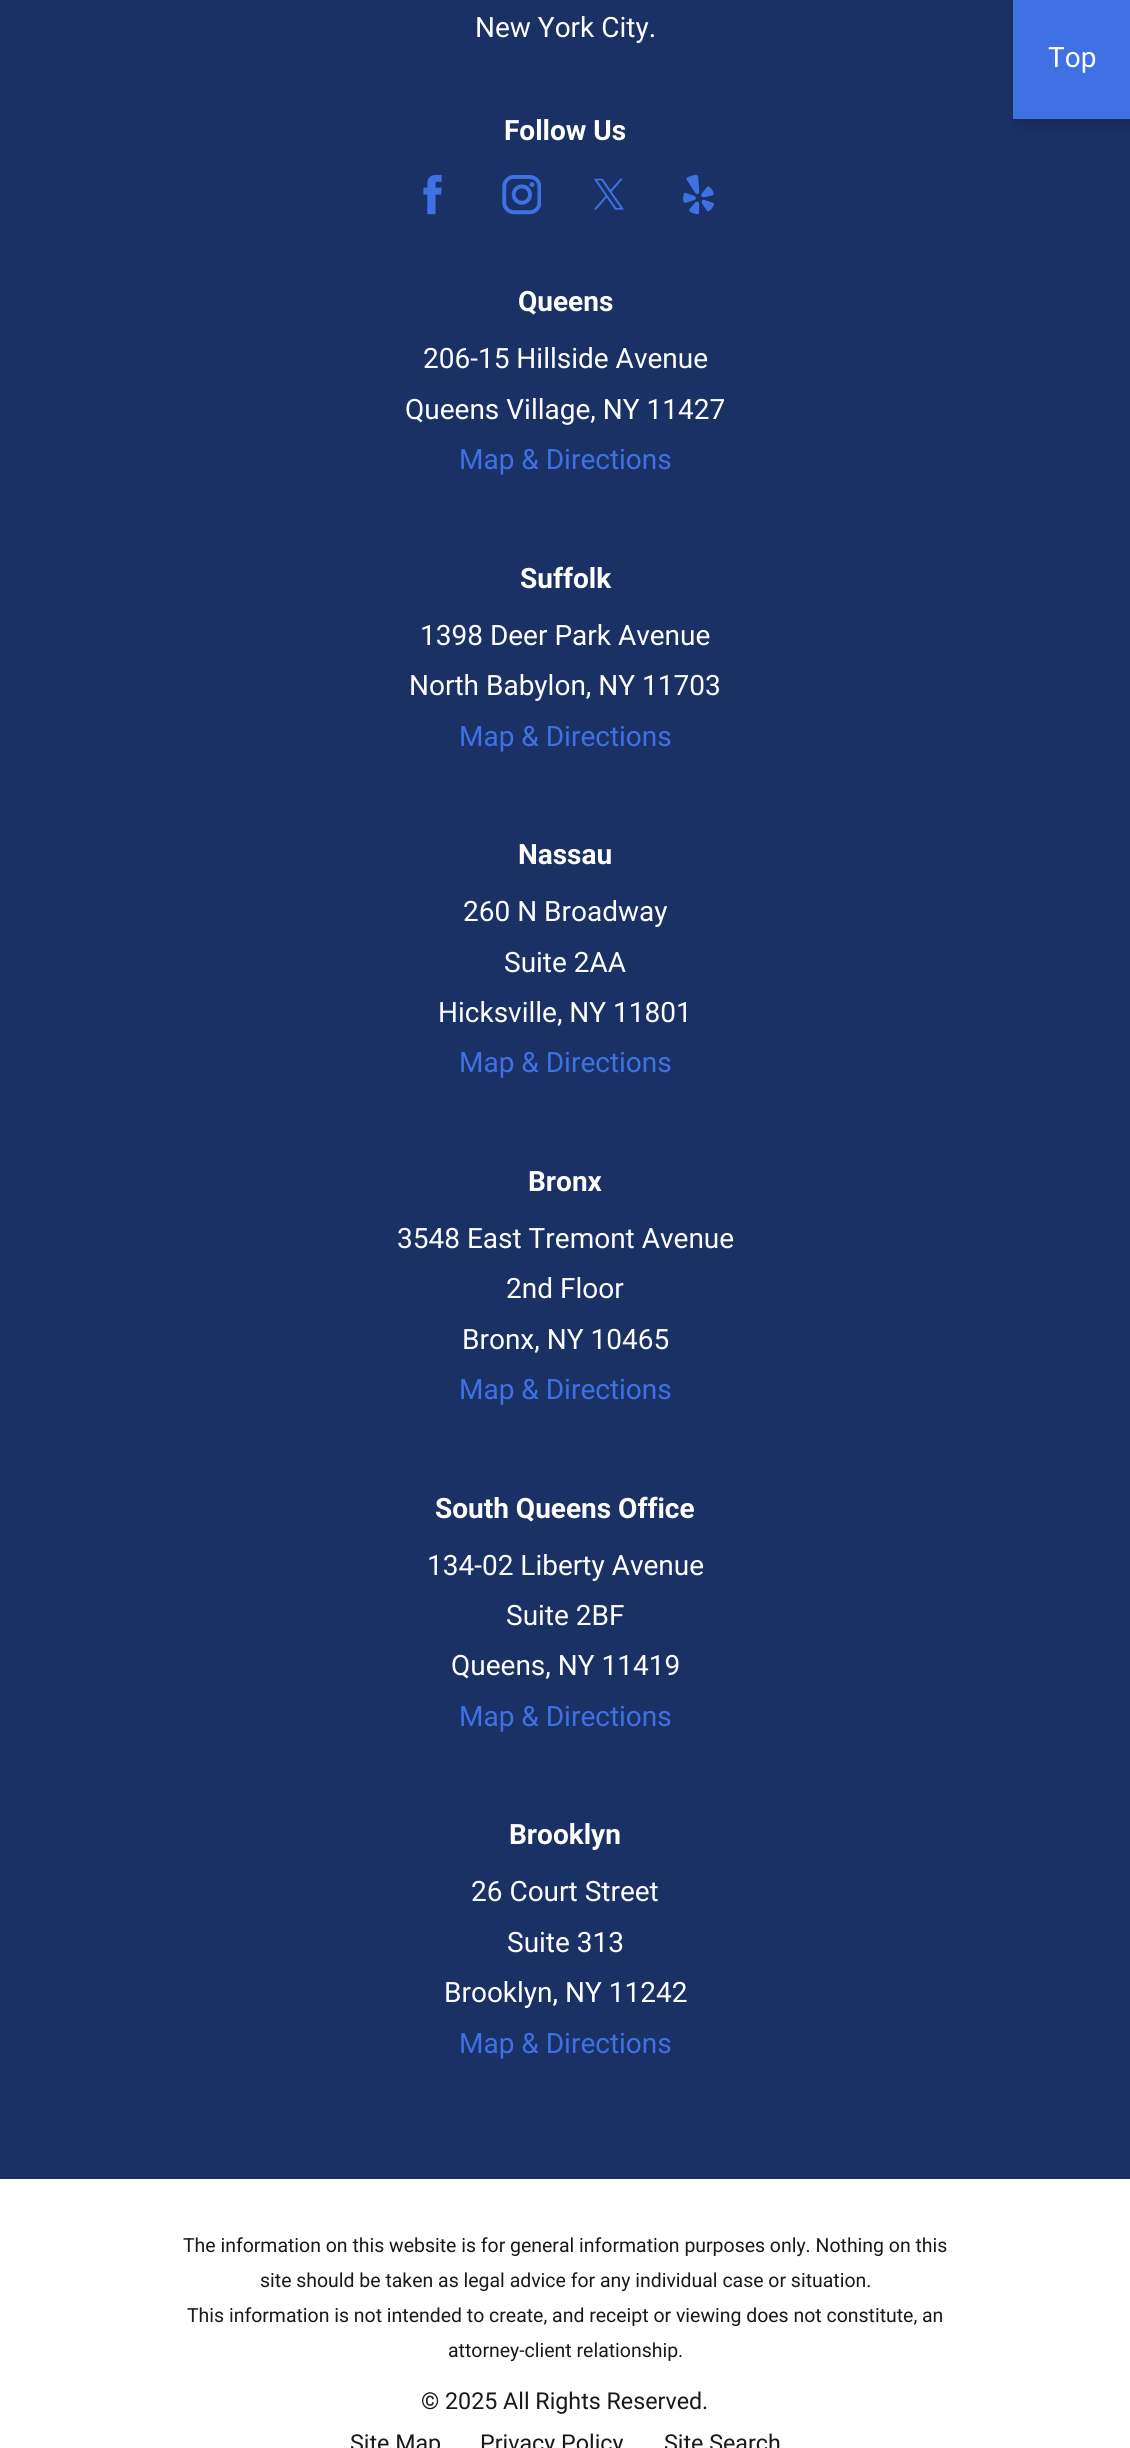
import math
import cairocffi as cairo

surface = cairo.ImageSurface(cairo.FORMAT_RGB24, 1130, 2448)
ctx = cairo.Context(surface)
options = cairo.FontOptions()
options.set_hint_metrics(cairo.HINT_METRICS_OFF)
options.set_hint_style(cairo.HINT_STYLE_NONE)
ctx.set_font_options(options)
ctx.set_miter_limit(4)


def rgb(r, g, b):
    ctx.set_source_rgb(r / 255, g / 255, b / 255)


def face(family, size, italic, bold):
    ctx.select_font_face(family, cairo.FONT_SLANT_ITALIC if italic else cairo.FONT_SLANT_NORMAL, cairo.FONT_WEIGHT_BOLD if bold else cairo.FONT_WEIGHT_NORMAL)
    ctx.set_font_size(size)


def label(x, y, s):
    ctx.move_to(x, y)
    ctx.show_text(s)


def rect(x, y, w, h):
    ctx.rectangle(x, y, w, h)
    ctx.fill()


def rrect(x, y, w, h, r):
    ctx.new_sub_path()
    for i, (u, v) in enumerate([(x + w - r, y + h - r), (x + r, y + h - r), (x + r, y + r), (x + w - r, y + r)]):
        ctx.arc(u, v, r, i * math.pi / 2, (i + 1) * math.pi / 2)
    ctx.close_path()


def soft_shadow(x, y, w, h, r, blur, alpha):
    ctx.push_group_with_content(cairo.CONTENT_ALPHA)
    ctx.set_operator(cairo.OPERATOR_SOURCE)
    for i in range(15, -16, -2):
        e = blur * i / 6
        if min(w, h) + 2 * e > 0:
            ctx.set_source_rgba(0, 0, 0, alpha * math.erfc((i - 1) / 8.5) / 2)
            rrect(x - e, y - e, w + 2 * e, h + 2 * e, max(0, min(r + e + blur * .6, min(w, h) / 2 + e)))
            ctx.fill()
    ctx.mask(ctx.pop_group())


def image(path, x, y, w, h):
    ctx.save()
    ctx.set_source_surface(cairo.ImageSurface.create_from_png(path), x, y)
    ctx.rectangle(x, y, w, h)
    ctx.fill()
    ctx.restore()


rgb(255, 255, 255)
ctx.paint()
rgb(26, 49, 101)
rect(0, 0, 1130, 2179)
face('Roboto', 28, 0, 0)
rgb(255, 255, 255)
label(475, 37, 'New York City.')
face('Roboto', 28, 0, 1)
label(504, 140, 'Follow Us')
image('image0.png', 423, 175, 19, 40)
image('image1.png', 502, 175, 39, 40)
image('image2.png', 593, 178, 31, 32)
image('image3.png', 683, 175, 31, 40)
label(518, 311, 'Queens')
face('Roboto', 28, 0, 0)
label(423, 368, '206-15 Hillside Avenue')
label(405, 419, 'Queens Village, NY 11427')
rgb(63, 112, 228)
label(459, 469, 'Map & Directions')
face('Roboto', 28, 0, 1)
rgb(255, 255, 255)
label(520, 588, 'Suffolk')
face('Roboto', 28, 0, 0)
label(420, 645, '1398 Deer Park Avenue')
label(409, 695, 'North Babylon, NY 11703')
rgb(63, 112, 228)
label(459, 746, 'Map & Directions')
face('Roboto', 28, 0, 1)
rgb(255, 255, 255)
label(518, 864, 'Nassau')
face('Roboto', 28, 0, 0)
label(463, 921, '260 N Broadway')
label(504, 972, 'Suite 2AA')
label(438, 1022, 'Hicksville, NY 11801')
rgb(63, 112, 228)
label(459, 1072, 'Map & Directions')
face('Roboto', 28, 0, 1)
rgb(255, 255, 255)
label(528, 1191, 'Bronx')
face('Roboto', 28, 0, 0)
label(397, 1248, '3548 East Tremont Avenue')
label(506, 1298, '2nd Floor')
label(462, 1349, 'Bronx, NY 10465')
rgb(63, 112, 228)
label(459, 1399, 'Map & Directions')
face('Roboto', 28, 0, 1)
rgb(255, 255, 255)
label(435, 1518, 'South Queens Office')
face('Roboto', 28, 0, 0)
label(427, 1575, '134-02 Liberty Avenue')
label(506, 1625, 'Suite 2BF')
label(451, 1675, 'Queens, NY 11419')
rgb(63, 112, 228)
label(459, 1726, 'Map & Directions')
face('Roboto', 28, 0, 1)
rgb(255, 255, 255)
label(509, 1844, 'Brooklyn')
face('Roboto', 28, 0, 0)
label(471, 1901, '26 Court Street')
label(507, 1952, 'Suite 313')
label(444, 2002, 'Brooklyn, NY 11242')
rgb(63, 112, 228)
label(459, 2053, 'Map & Directions')
face('Roboto', 19.45, 0, 0)
rgb(25, 25, 25)
label(183, 2252, 'The information on this website is for general information purposes only. Nothing on this')
label(260, 2287, 'site should be taken as legal advice for any individual case or situation.')
label(187, 2322, 'This information is not intended to create, and receipt or viewing does not constitute, an')
label(448, 2357, 'attorney-client relationship.')
face('Roboto', 23.25, 0, 0)
label(421, 2409, '© 2025 All Rights Reserved.')
label(350, 2451, 'Site Map')
label(480, 2451, 'Privacy Policy')
label(664, 2451, 'Site Search')
rgb(0, 0, 0)
soft_shadow(1017, 4, 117, 119, 0, 7, 0.16)
rgb(63, 112, 228)
rect(1013, 0, 117, 119)
face('Roboto', 28, 0, 0)
rgb(255, 255, 255)
label(1048, 67, 'Top')
surface.write_to_png('render.png')
